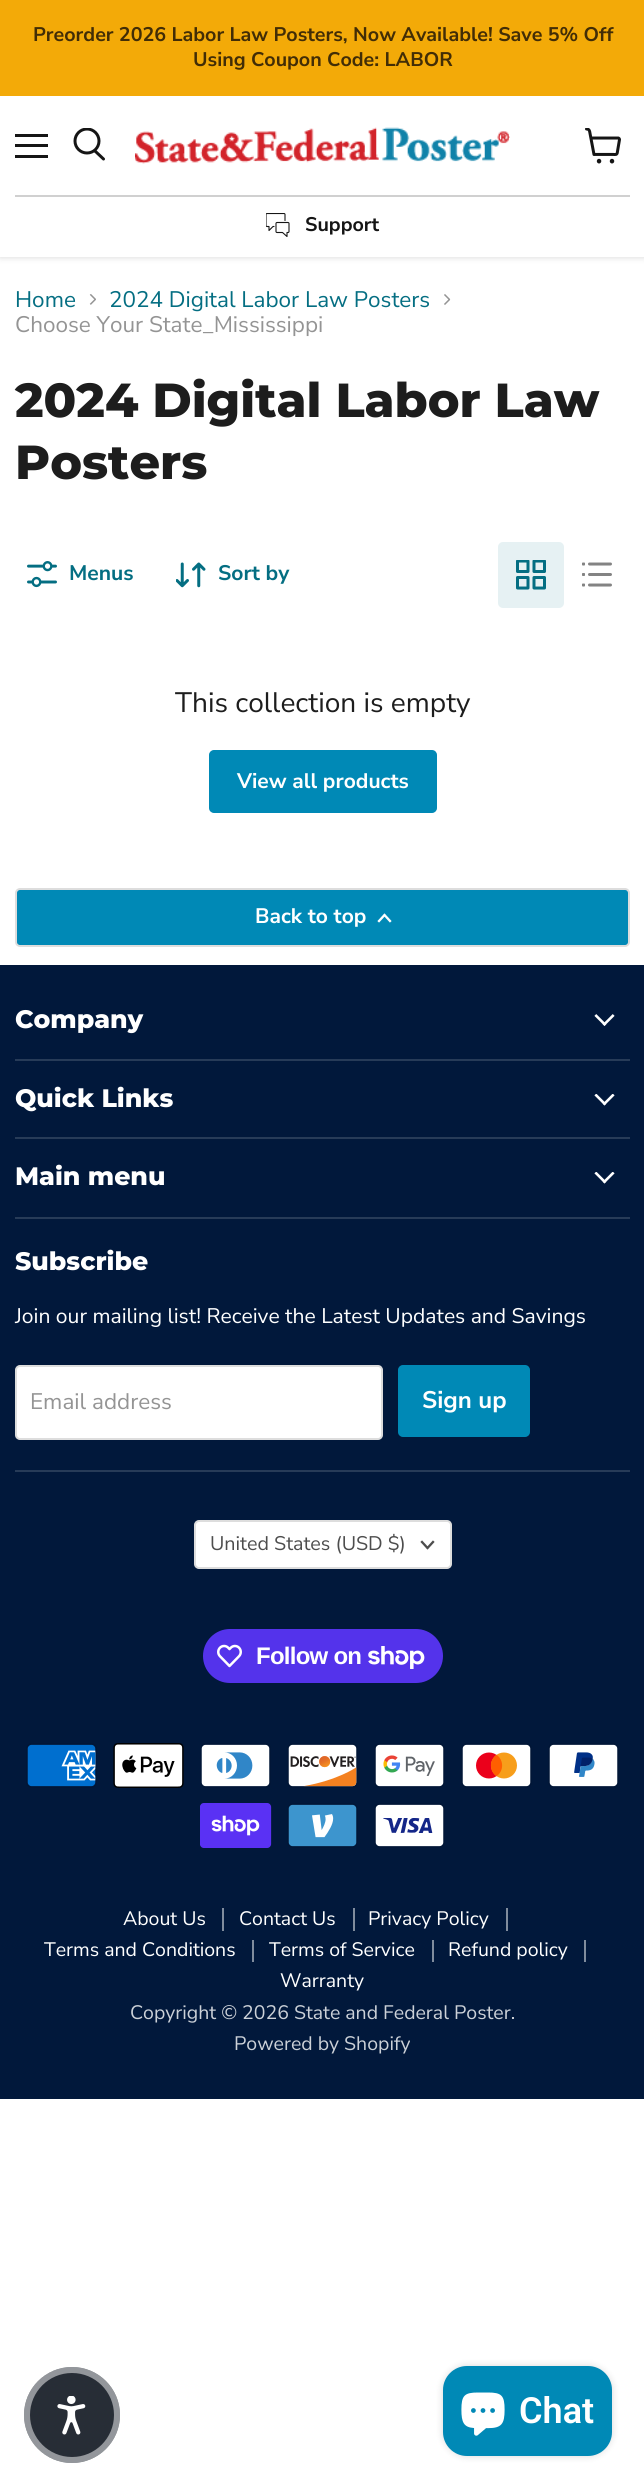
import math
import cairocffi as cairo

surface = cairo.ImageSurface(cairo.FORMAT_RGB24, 644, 2487)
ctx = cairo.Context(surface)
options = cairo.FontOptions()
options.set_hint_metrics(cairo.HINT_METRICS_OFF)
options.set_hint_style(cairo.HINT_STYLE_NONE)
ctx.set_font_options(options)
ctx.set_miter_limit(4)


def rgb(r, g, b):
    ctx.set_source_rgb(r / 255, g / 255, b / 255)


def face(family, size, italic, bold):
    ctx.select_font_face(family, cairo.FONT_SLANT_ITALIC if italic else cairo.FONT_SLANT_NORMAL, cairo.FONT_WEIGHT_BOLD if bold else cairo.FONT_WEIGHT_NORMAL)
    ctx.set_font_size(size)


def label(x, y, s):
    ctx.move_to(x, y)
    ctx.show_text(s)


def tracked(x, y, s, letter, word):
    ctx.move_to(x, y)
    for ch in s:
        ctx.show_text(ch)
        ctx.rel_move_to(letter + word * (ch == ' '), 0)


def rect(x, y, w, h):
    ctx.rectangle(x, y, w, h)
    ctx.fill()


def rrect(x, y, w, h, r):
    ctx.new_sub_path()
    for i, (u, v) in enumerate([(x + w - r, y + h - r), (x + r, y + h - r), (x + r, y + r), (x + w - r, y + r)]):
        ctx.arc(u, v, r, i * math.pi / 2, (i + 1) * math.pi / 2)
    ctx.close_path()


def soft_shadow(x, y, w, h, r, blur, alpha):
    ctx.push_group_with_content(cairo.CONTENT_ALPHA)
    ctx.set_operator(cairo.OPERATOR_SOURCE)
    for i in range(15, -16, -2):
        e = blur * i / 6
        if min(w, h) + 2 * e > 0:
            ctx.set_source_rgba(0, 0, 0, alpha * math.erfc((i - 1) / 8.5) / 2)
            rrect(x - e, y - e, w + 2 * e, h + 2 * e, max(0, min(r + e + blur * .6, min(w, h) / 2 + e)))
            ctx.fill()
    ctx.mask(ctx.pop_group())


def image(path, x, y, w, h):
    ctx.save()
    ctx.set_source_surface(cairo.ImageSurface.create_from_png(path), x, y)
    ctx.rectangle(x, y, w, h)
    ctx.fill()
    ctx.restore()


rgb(255, 255, 255)
ctx.paint()
rgb(128, 128, 128)
soft_shadow(0, 98, 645, 160, 0, 3, 0.25)
rgb(243, 170, 8)
rect(0, 0, 644, 96)
face('Nunito Sans', 19.7, 0, 1)
rgb(66, 45, 6)
label(33, 41, 'Preorder 2026 Labor Law Posters, Now Available! Save 5% Off')
label(193, 66, 'Using Coupon Code: LABOR')
rgb(255, 255, 255)
rect(0, 96, 644, 161)
rgb(21, 21, 21)
rect(15, 134, 33, 3)
rect(15, 144, 33, 3)
rect(15, 155, 33, 3)
ctx.new_path()
ctx.move_to(103.5, 159)
ctx.line_to(95, 151)
ctx.set_line_width(3)
ctx.set_line_cap(cairo.LINE_CAP_ROUND)
ctx.stroke()
ctx.save()
ctx.rectangle(72, 128, 35, 36)
ctx.clip()
ctx.arc(87, 141, 12, 0, 2 * math.pi)
ctx.set_line_cap(cairo.LINE_CAP_BUTT)
ctx.stroke()
ctx.restore()
image('image0.png', 585, 128, 36, 36)
image('image1.png', 135, 127, 375, 37)
rgb(208, 208, 208)
rect(15, 195, 615, 2)
image('image2.png', 266, 213, 24, 24)
rgb(21, 21, 21)
label(305, 231, 'Support')
face('Nunito Sans', 22.5, 0, 0)
rgb(4, 110, 130)
label(15, 307, 'Home')
image('image3.png', 89, 294, 7, 11)
label(109, 307, '2024 Digital Labor Law Posters')
image('image4.png', 444, 294, 7, 11)
rgb(148, 148, 148)
label(15, 332, 'Choose Your State_Mississippi')
face('Montserrat ExtraBold', 47.75, 0, 0)
rgb(29, 29, 29)
label(15, 417, '2024 Digital Labor Law')
label(15, 479, 'Posters')
image('image5.png', 27, 561, 30, 27)
face('Nunito Sans', 21.1, 0, 1)
rgb(4, 110, 130)
label(69, 580, 'Menus')
image('image6.png', 176, 562, 30, 26)
label(218, 580, 'Sort by')
rgb(230, 241, 243)
rrect(498, 542, 66, 66, 5)
ctx.fill()
image('image7.png', 516, 560, 30, 30)
image('image8.png', 582, 562, 30, 25)
face('Nunito Sans', 28.1, 0, 0)
rgb(29, 29, 29)
label(175, 712, 'This collection is empty')
rgb(0, 137, 182)
rrect(210, 751, 226, 61, 4)
ctx.fill_preserve()
ctx.set_line_width(2)
ctx.set_line_cap(cairo.LINE_CAP_BUTT)
ctx.stroke()
face('Nunito Sans', 21, 0, 1)
rgb(255, 255, 255)
label(237, 788, 'View all products')
rgb(0, 137, 182)
rrect(16, 889, 613, 57, 4)
ctx.fill_preserve()
rgb(221, 221, 221)
ctx.stroke()
rgb(255, 255, 255)
label(255, 923, 'Back to top')
ctx.new_path()
ctx.move_to(384.5, 915)
ctx.line_to(379, 921)
ctx.move_to(384.5, 915)
ctx.line_to(390, 921)
ctx.set_line_width(2.3)
ctx.set_line_cap(cairo.LINE_CAP_SQUARE)
ctx.stroke()
rgb(1, 24, 59)
rect(0, 965, 644, 1134)
rgb(39, 59, 88)
rect(15, 1059, 615, 2)
face('Montserrat ExtraBold', 25.25, 0, 0)
rgb(255, 255, 255)
label(15, 1028, 'Company')
image('image9.png', 594, 1014, 21, 12)
rgb(39, 59, 88)
rect(15, 1137, 615, 2)
rgb(255, 255, 255)
label(15, 1107, 'Quick Links')
image('image10.png', 594, 1094, 21, 12)
rgb(39, 59, 88)
rect(15, 1217, 615, 2)
rgb(255, 255, 255)
label(15, 1185, 'Main menu')
image('image10.png', 594, 1172, 21, 12)
rgb(39, 59, 88)
rect(15, 1470, 615, 2)
rgb(255, 255, 255)
label(15, 1270, 'Subscribe')
face('Nunito Sans', 21.1, 0, 0)
label(15, 1323, 'Join our mailing list! Receive the Latest Updates and Savings')
rrect(16, 1366, 366, 73, 4)
ctx.fill_preserve()
rgb(221, 221, 221)
ctx.set_line_width(2)
ctx.set_line_cap(cairo.LINE_CAP_BUTT)
ctx.stroke()
face('Nunito Sans', 22.5, 0, 0)
rgb(148, 148, 148)
label(30, 1409, 'Email address')
rgb(0, 137, 182)
rrect(399, 1366, 130, 70, 4)
ctx.fill_preserve()
ctx.stroke()
face('Nunito Sans', 24, 0, 1)
rgb(255, 255, 255)
label(422, 1408, 'Sign up')
rrect(195, 1521, 256, 47, 4)
ctx.fill_preserve()
rgb(221, 221, 221)
ctx.stroke()
face('Nunito Sans', 19.7, 0, 0)
rgb(77, 77, 77)
label(210, 1550, 'United States (USD $)')
ctx.new_path()
ctx.move_to(427.5, 1548)
ctx.line_to(433, 1542)
ctx.move_to(427.5, 1548)
ctx.line_to(422, 1542)
ctx.set_line_width(2.3)
ctx.set_line_cap(cairo.LINE_CAP_SQUARE)
ctx.stroke()
rgb(84, 51, 235)
rrect(203, 1629, 240, 54, 27)
ctx.fill()
image('image11.png', 217, 1644, 25, 24)
face('Liberation Sans', 24, 0, 1)
rgb(255, 255, 255)
tracked(256, 1664, 'Follow on', -0.75, 0)
image('image12.png', 368, 1646, 57, 23)
image('image13.png', 26, 1743, 71, 45)
image('image14.png', 113, 1743, 71, 45)
image('image15.png', 200, 1743, 71, 45)
image('image16.png', 287, 1743, 71, 45)
image('image17.png', 374, 1743, 71, 45)
image('image18.png', 461, 1743, 71, 45)
image('image19.png', 548, 1743, 71, 45)
image('image20.png', 200, 1803, 72, 45)
image('image21.png', 287, 1803, 71, 45)
image('image22.png', 374, 1803, 71, 45)
rgb(128, 140, 157)
rect(222, 1908, 2, 23)
face('Nunito Sans', 19.5, 0, 0)
rgb(255, 255, 255)
label(123, 1925, 'About Us')
rgb(128, 140, 157)
rect(353, 1908, 2, 23)
rgb(255, 255, 255)
label(239, 1925, 'Contact Us')
rgb(128, 140, 157)
rect(506, 1908, 2, 23)
rgb(255, 255, 255)
label(368, 1925, 'Privacy Policy')
rgb(128, 140, 157)
rect(252, 1940, 2, 22)
rgb(255, 255, 255)
label(44, 1956, 'Terms and Conditions')
rgb(128, 140, 157)
rect(432, 1940, 2, 22)
rgb(255, 255, 255)
label(269, 1956, 'Terms of Service')
rgb(128, 140, 157)
rect(584, 1940, 2, 22)
rgb(255, 255, 255)
label(448, 1956, 'Refund policy')
label(280, 1987, 'Warranty')
rgb(204, 209, 216)
label(130, 2019, 'Copyright © 2026 State and Federal Poster.')
label(234, 2050, 'Powered by Shopify')
rgb(39, 45, 54)
ctx.new_path()
ctx.arc(72, 2415, 48, 0, 2 * math.pi)
ctx.fill()
ctx.arc(72, 2415, 45, 0, 2 * math.pi)
ctx.set_source_rgba(1, 1, 1, 0.5)
ctx.set_line_width(6)
ctx.set_line_cap(cairo.LINE_CAP_BUTT)
ctx.stroke()
image('image23.png', 57, 2396, 29, 39)
rgb(0, 0, 0)
soft_shadow(443, 2366, 169, 90, 24, 4, 0.15)
rgb(0, 137, 182)
rrect(443, 2366, 169, 90, 24)
ctx.fill()
image('image24.png', 461, 2392, 44, 44)
face('Roboto SemiBold', 36, 0, 0)
rgb(255, 255, 255)
label(519, 2423, 'Chat')
surface.write_to_png('render.png')
